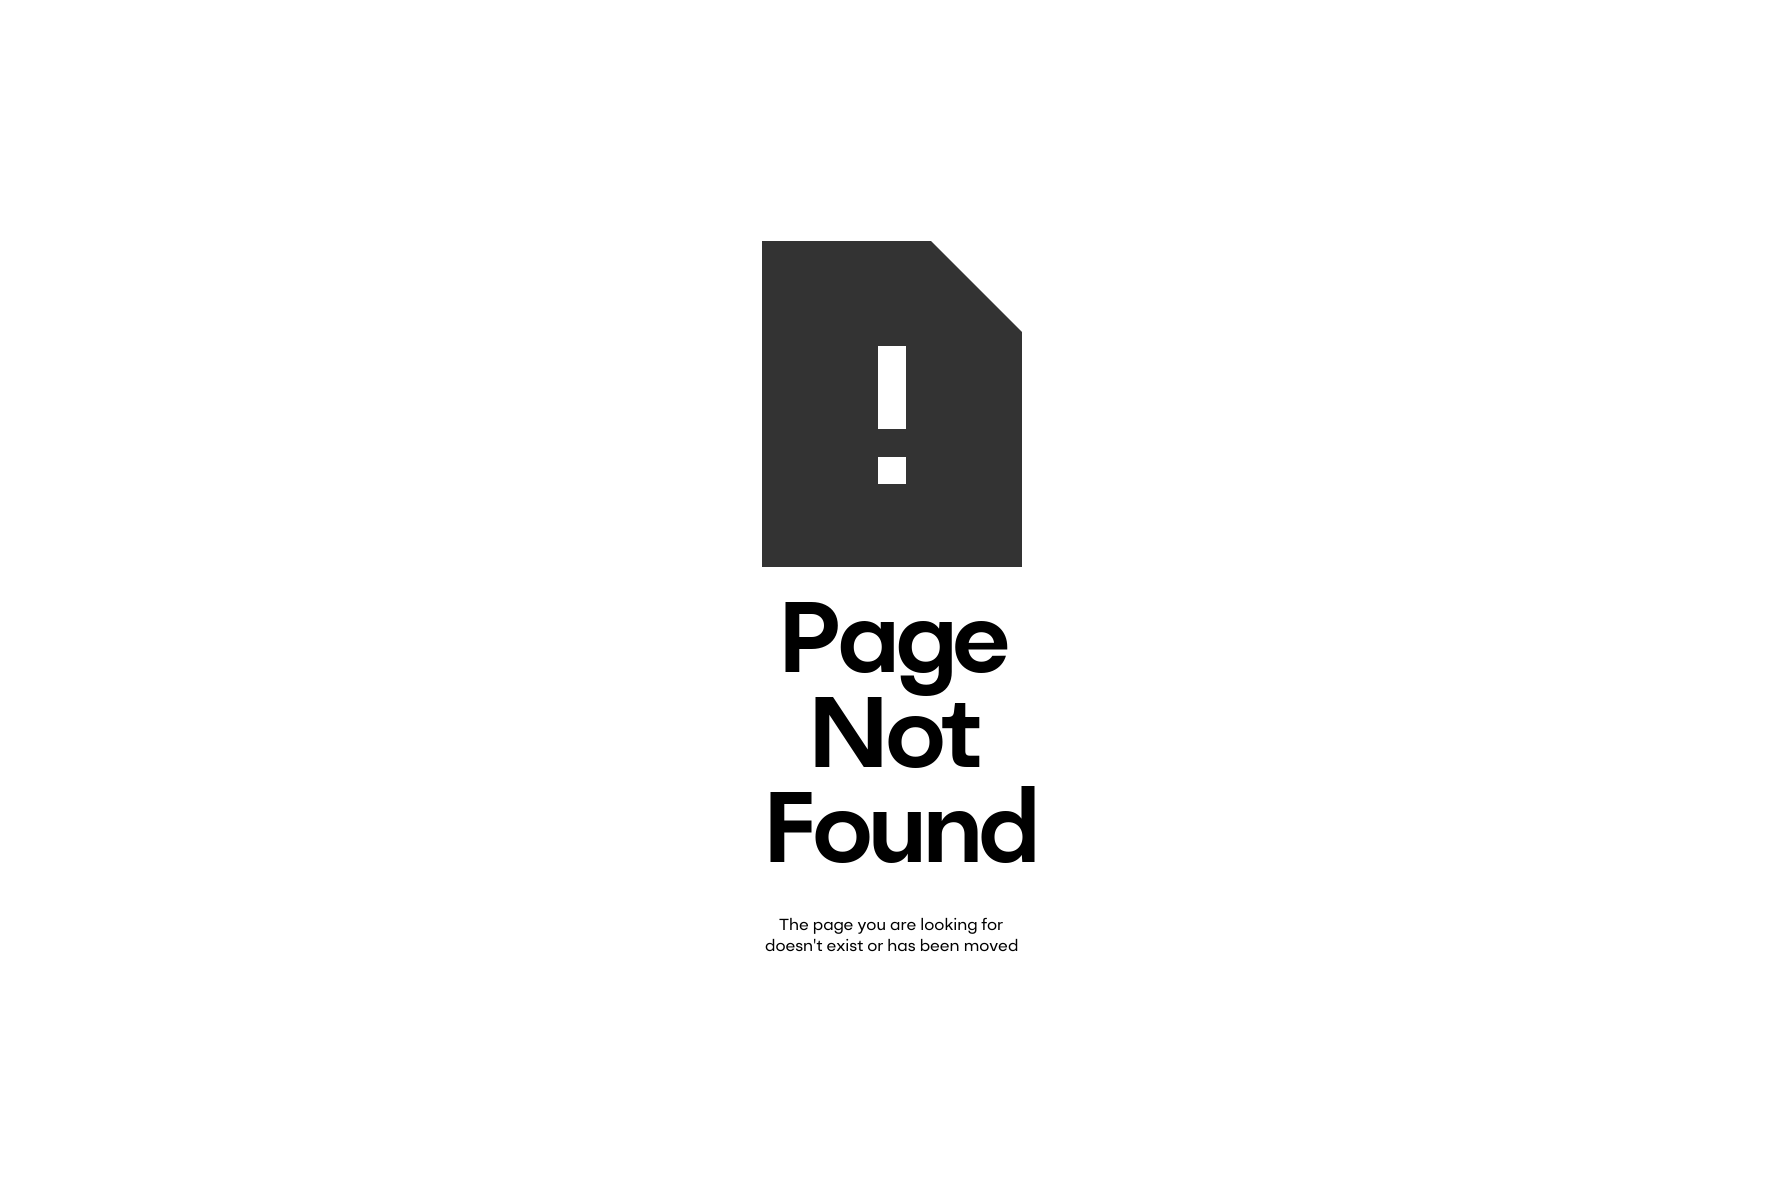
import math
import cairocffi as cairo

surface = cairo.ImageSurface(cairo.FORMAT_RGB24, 1783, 1198)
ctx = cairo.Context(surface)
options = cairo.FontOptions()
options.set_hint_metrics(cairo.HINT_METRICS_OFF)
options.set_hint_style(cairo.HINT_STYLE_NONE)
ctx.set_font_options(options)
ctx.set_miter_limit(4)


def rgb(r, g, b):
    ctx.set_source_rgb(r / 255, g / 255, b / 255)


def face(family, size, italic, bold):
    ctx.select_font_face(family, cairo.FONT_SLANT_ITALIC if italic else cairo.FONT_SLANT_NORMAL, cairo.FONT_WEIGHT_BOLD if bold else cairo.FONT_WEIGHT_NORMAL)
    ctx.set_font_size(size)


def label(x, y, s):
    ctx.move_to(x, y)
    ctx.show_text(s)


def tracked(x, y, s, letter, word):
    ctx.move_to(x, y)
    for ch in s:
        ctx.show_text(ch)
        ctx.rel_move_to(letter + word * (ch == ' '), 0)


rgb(255, 255, 255)
ctx.paint()
rgb(51, 51, 51)
ctx.set_fill_rule(cairo.FILL_RULE_EVEN_ODD)
ctx.new_path()
ctx.move_to(762, 241)
ctx.line_to(931, 241)
ctx.line_to(1022, 332)
ctx.line_to(1022, 567)
ctx.line_to(762, 567)
ctx.close_path()
ctx.move_to(878, 346)
ctx.line_to(906, 346)
ctx.line_to(906, 429)
ctx.line_to(878, 429)
ctx.close_path()
ctx.move_to(878, 457)
ctx.line_to(906, 457)
ctx.line_to(906, 484)
ctx.line_to(878, 484)
ctx.close_path()
ctx.fill()
face('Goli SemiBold', 100, 0, 0)
rgb(0, 0, 0)
tracked(777, 672, 'Page', -5, 0)
tracked(807, 767, 'Not', -5, 0)
tracked(762, 862, 'Found', -5, 0)
face('Goli', 16, 0, 0)
label(779, 930, 'The page you are looking for')
label(765, 951, 'doesn\'t exist or has been moved')
surface.write_to_png('render.png')
